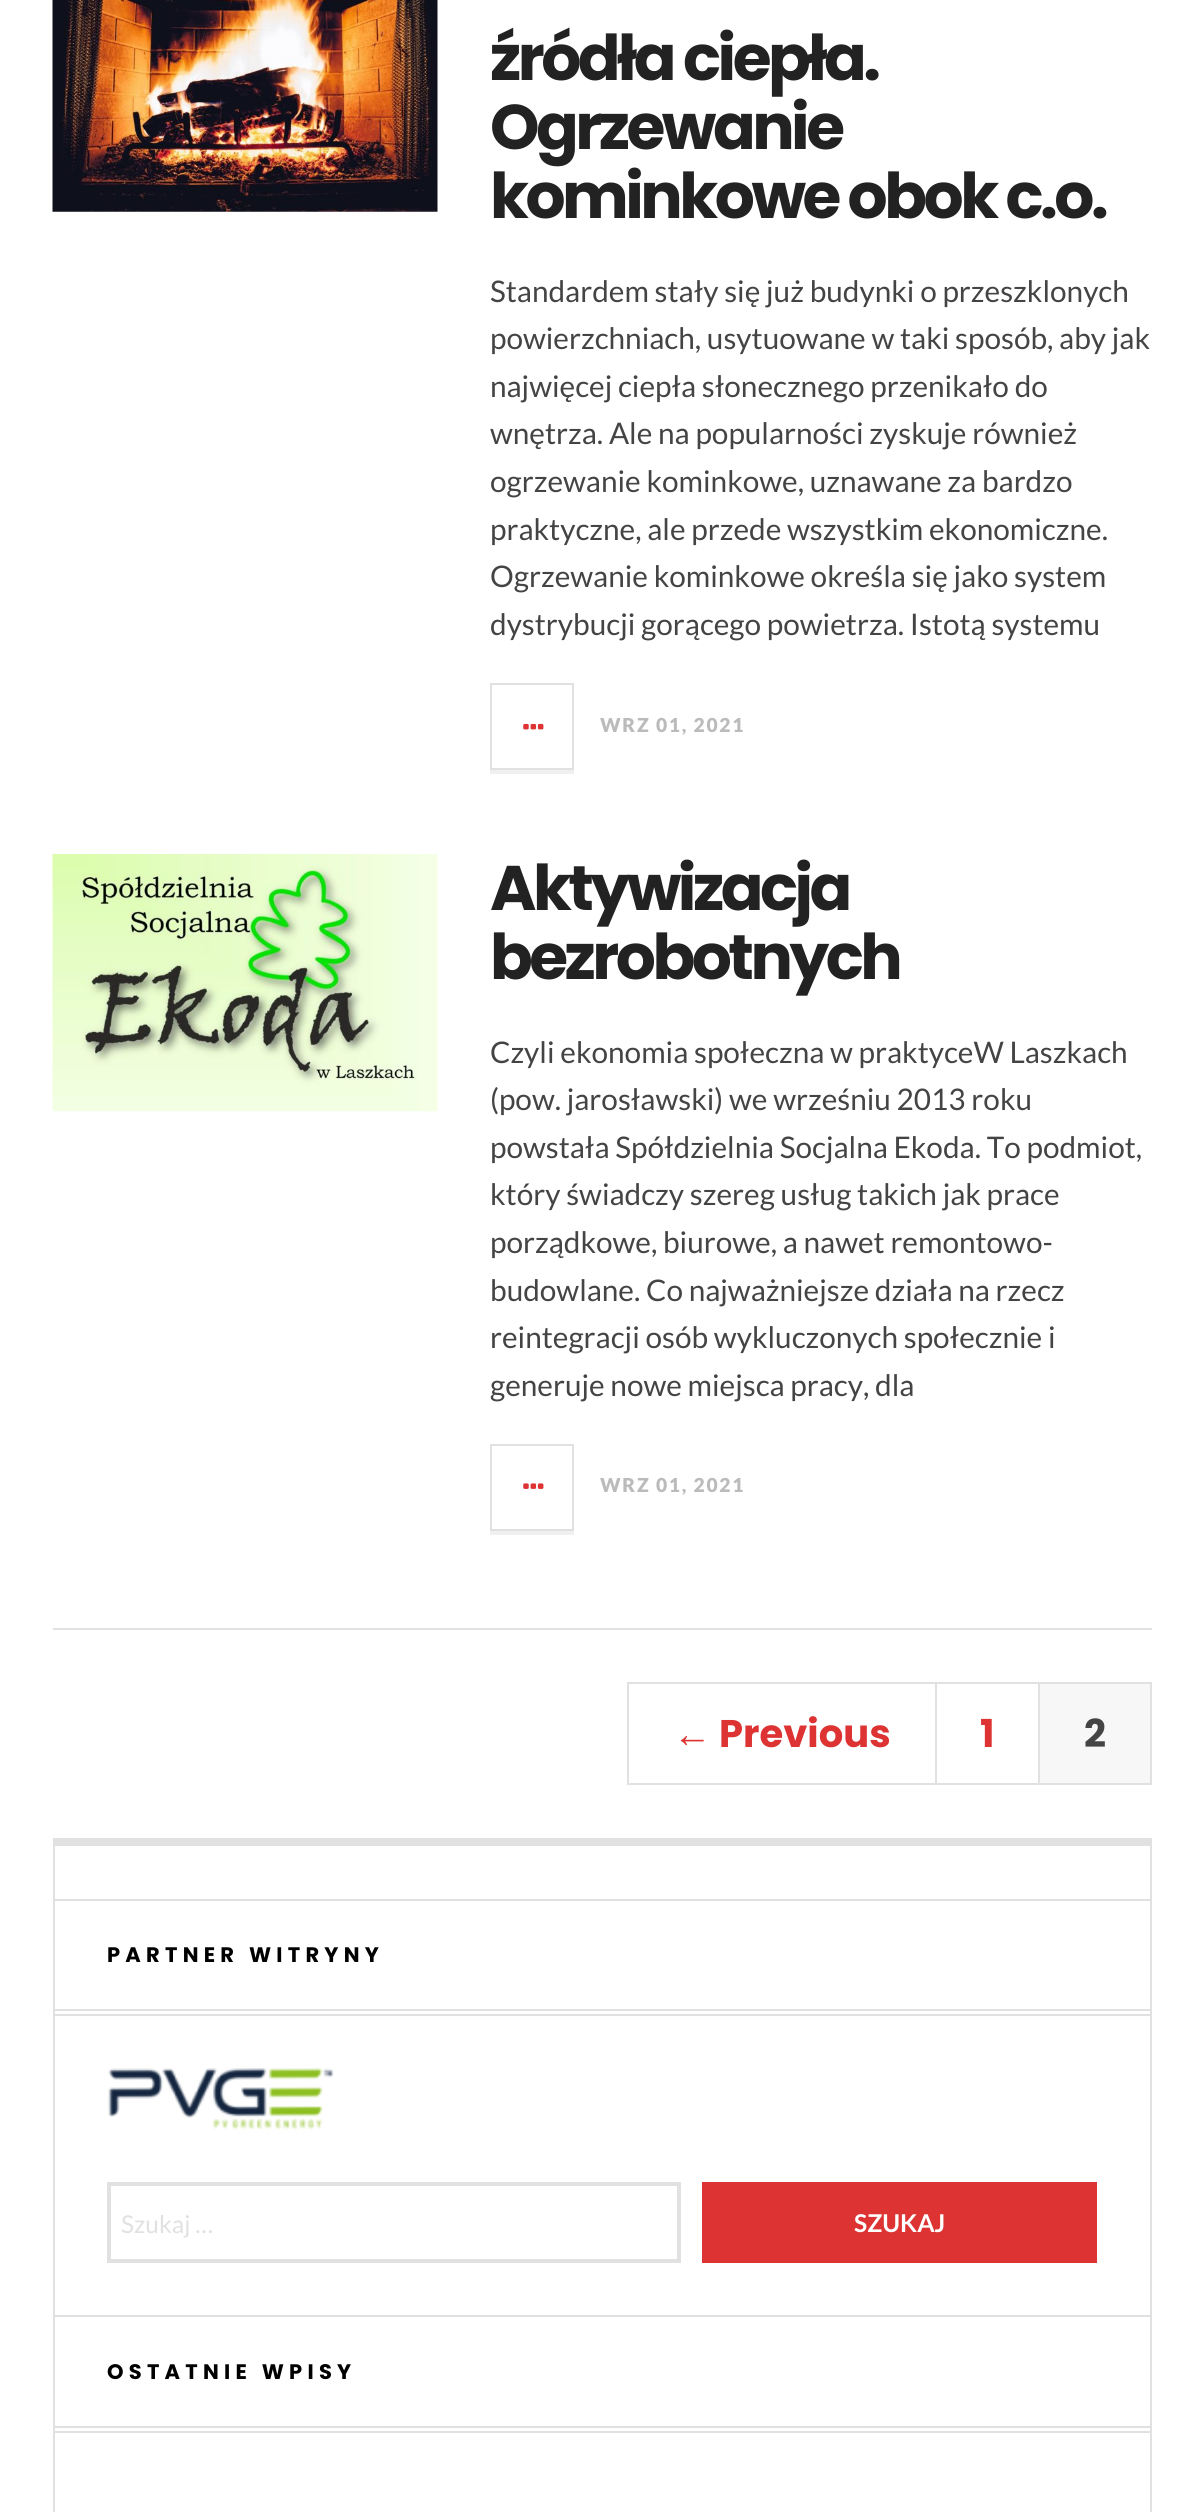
import math
import cairocffi as cairo

surface = cairo.ImageSurface(cairo.FORMAT_RGB24, 1203, 2512)
ctx = cairo.Context(surface)
options = cairo.FontOptions()
options.set_hint_metrics(cairo.HINT_METRICS_OFF)
options.set_hint_style(cairo.HINT_STYLE_NONE)
ctx.set_font_options(options)
ctx.set_miter_limit(4)


def rgb(r, g, b):
    ctx.set_source_rgb(r / 255, g / 255, b / 255)


def face(family, size, italic, bold):
    ctx.select_font_face(family, cairo.FONT_SLANT_ITALIC if italic else cairo.FONT_SLANT_NORMAL, cairo.FONT_WEIGHT_BOLD if bold else cairo.FONT_WEIGHT_NORMAL)
    ctx.set_font_size(size)


def label(x, y, s):
    ctx.move_to(x, y)
    ctx.show_text(s)


def tracked(x, y, s, letter, word):
    ctx.move_to(x, y)
    for ch in s:
        ctx.show_text(ch)
        ctx.rel_move_to(letter + word * (ch == ' '), 0)


def rect(x, y, w, h):
    ctx.rectangle(x, y, w, h)
    ctx.fill()


def image(path, x, y, w, h):
    ctx.save()
    ctx.set_source_surface(cairo.ImageSurface.create_from_png(path), x, y)
    ctx.rectangle(x, y, w, h)
    ctx.fill()
    ctx.restore()


rgb(255, 255, 255)
ctx.paint()
image('image0.png', 52, 0, 386, 212)
face('Poppins', 63, 0, 1)
rgb(34, 34, 34)
tracked(490, 80, 'źródła ciepła.', -3.5, 0)
tracked(490, 149, 'Ogrzewanie', -3.5, 0)
tracked(490, 218, 'kominkowe obok c.o.', -3.5, 0)
face('Lato', 29.75, 0, 0)
rgb(68, 68, 68)
label(490, 302, 'Standardem stały się już budynki o przeszklonych')
label(490, 349, 'powierzchniach, usytuowane w taki sposób, aby jak')
label(490, 397, 'najwięcej ciepła słonecznego przenikało do')
label(490, 444, 'wnętrza. Ale na popularności zyskuje również')
label(490, 492, 'ogrzewanie kominkowe, uznawane za bardzo')
label(490, 540, 'praktyczne, ale przede wszystkim ekonomiczne.')
label(490, 587, 'Ogrzewanie kominkowe określa się jako system')
label(490, 635, 'dystrybucji gorącego powietrza. Istotą systemu')
rgb(240, 240, 240)
rect(490, 770, 84, 4)
ctx.rectangle(491, 684, 82, 85)
rgb(225, 225, 225)
ctx.stroke()
image('image1.png', 523, 723, 21, 7)
face('Lato Black', 19.25, 0, 0)
rgb(187, 187, 187)
tracked(600, 732, 'WRZ 01, 2021', 1.75, 0)
image('image2.png', 52, 854, 386, 258)
face('Poppins', 63, 0, 1)
rgb(34, 34, 34)
tracked(490, 910, 'Aktywizacja', -3.5, 0)
tracked(490, 979, 'bezrobotnych', -3.5, 0)
face('Lato', 29.75, 0, 0)
rgb(68, 68, 68)
label(490, 1063, 'Czyli ekonomia społeczna w praktyceW Laszkach')
label(490, 1110, '(pow. jarosławski) we wrześniu 2013 roku')
label(490, 1158, 'powstała Spółdzielnia Socjalna Ekoda. To podmiot,')
label(490, 1205, 'który świadczy szereg usług takich jak prace')
label(490, 1253, 'porządkowe, biurowe, a nawet remontowo-')
label(490, 1301, 'budowlane. Co najważniejsze działa na rzecz')
label(490, 1348, 'reintegracji osób wykluczonych społecznie i')
label(490, 1396, 'generuje nowe miejsca pracy, dla')
rgb(240, 240, 240)
rect(490, 1531, 84, 4)
ctx.rectangle(491, 1445, 82, 85)
rgb(225, 225, 225)
ctx.stroke()
image('image3.png', 523, 1483, 21, 6)
face('Lato Black', 19.25, 0, 0)
rgb(187, 187, 187)
tracked(600, 1492, 'WRZ 01, 2021', 1.75, 0)
rgb(225, 225, 225)
rect(53, 1628, 1099, 2)
ctx.rectangle(628, 1683, 523, 101)
ctx.stroke()
rect(935, 1684, 2, 99)
face('Liberation Sans', 38.5, 0, 1)
rgb(221, 51, 51)
label(673, 1747, '←')
face('Poppins', 38.5, 0, 1)
label(719, 1747, 'Previous')
rgb(225, 225, 225)
rect(1038, 1684, 2, 99)
rgb(221, 51, 51)
label(980, 1747, '1')
rgb(247, 247, 247)
rect(1040, 1684, 110, 99)
rgb(68, 68, 68)
label(1084, 1747, '2')
rgb(225, 225, 225)
rect(53, 1838, 1099, 8)
rect(1150, 1838, 2, 674)
rect(53, 1838, 2, 674)
rect(54, 1899, 1096, 2)
rect(54, 2009, 1096, 2)
rect(54, 2014, 1096, 2)
face('Poppins', 21, 0, 1)
rgb(0, 0, 0)
tracked(107, 1962, 'PARTNER WITRYNY', 5.25, 0)
image('image4.png', 108, 2068, 226, 62)
ctx.rectangle(109, 2184, 570, 77)
rgb(225, 225, 225)
ctx.set_line_width(4)
ctx.stroke()
face('Lato', 24.5, 0, 0)
label(121, 2233, 'Szukaj …')
rgb(221, 51, 51)
rect(702, 2182, 395, 81)
face('Lato', 24.5, 0, 1)
rgb(255, 255, 255)
label(854, 2232, 'SZUKAJ')
rgb(225, 225, 225)
rect(54, 2315, 1096, 2)
rect(54, 2426, 1096, 2)
rect(54, 2431, 1096, 2)
face('Poppins', 21, 0, 1)
rgb(0, 0, 0)
tracked(107, 2379, 'OSTATNIE WPISY', 5.25, 0)
surface.write_to_png('render.png')
